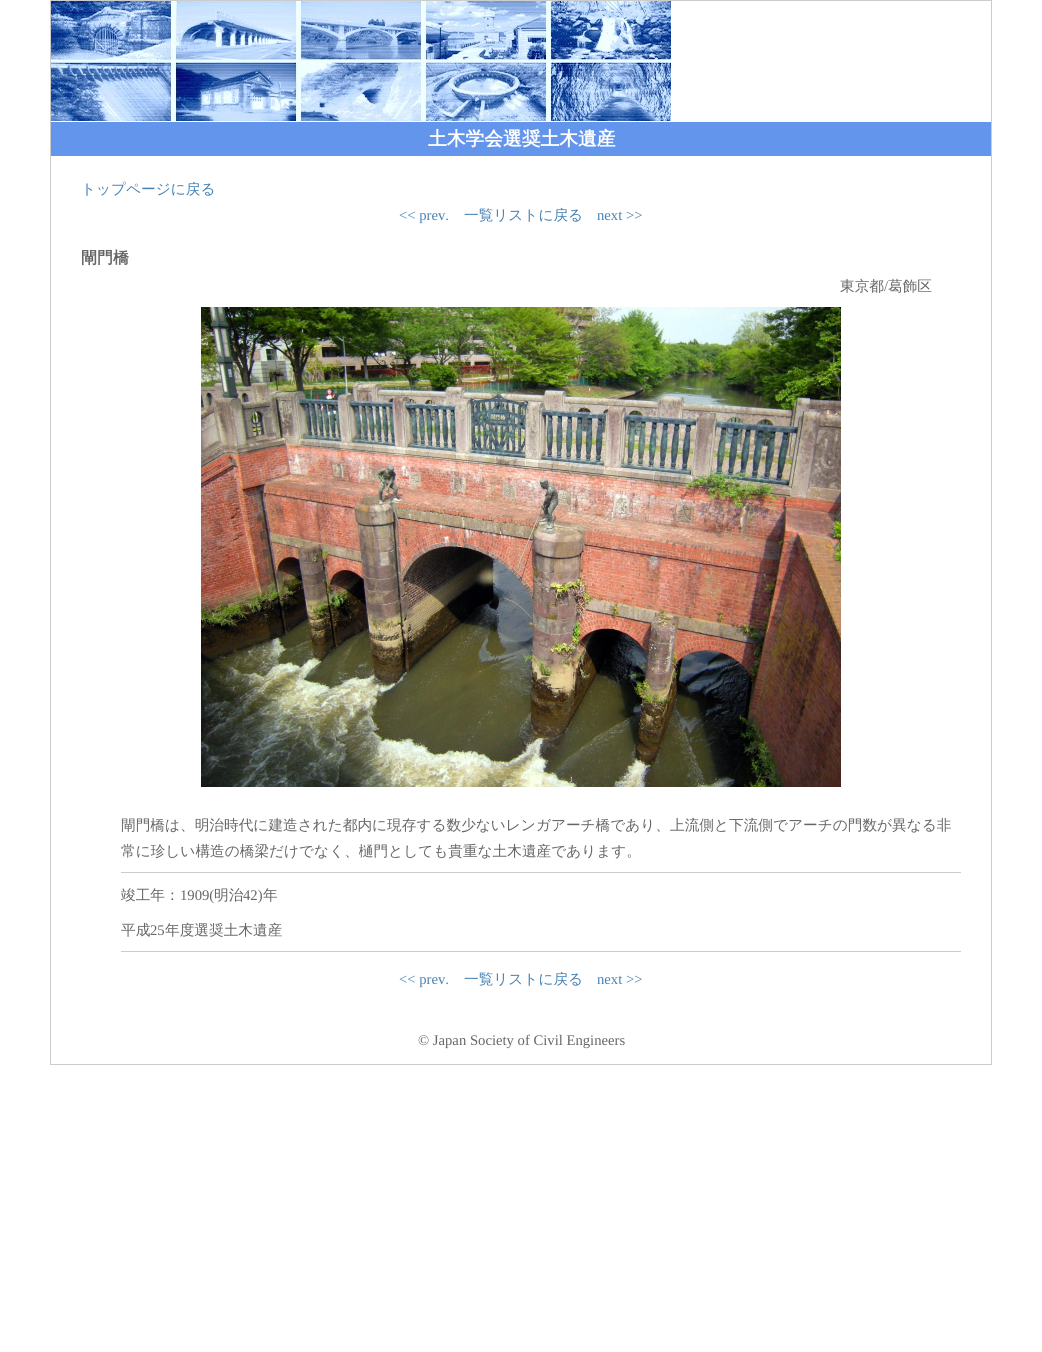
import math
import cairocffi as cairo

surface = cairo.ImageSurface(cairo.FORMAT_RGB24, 1042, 1352)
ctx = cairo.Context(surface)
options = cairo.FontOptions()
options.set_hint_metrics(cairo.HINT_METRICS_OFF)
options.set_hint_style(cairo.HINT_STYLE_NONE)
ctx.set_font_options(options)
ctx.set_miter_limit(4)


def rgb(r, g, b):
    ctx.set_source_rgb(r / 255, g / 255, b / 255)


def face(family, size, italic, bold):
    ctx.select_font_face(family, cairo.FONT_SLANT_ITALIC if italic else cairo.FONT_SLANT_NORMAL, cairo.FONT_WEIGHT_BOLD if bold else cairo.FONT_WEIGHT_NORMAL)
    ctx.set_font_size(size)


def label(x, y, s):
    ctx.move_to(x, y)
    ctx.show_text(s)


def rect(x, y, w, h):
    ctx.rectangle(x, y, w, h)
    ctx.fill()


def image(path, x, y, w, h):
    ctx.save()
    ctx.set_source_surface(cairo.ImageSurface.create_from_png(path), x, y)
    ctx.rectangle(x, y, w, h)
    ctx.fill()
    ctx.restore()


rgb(255, 255, 255)
ctx.paint()
ctx.rectangle(50.5, 0.5, 941, 1064)
rgb(204, 204, 204)
ctx.set_line_width(1)
ctx.stroke()
image('image0.png', 51, 1, 620, 120)
rgb(100, 149, 237)
rect(51, 122, 940, 34)
face('WenQuanYi Zen Hei', 18.75, 0, 1)
rgb(255, 255, 255)
label(428, 145, '土木学会選奨土木遺産')
face('WenQuanYi Zen Hei Medium', 14.67, 0, 0)
rgb(70, 130, 180)
label(81, 194, 'トップページに戻る')
face('Liberation Serif', 14.67, 0, 0)
label(399, 220, '<< prev.')
face('WenQuanYi Zen Hei Medium', 14.67, 0, 0)
label(464, 220, '一覧リストに戻る')
face('Liberation Serif', 14.67, 0, 0)
label(597, 220, 'next >>')
face('WenQuanYi Zen Hei', 16, 0, 1)
rgb(102, 102, 102)
label(81, 263, '閘門橋')
face('WenQuanYi Zen Hei Medium', 14.67, 0, 0)
label(840, 291, '東京都')
face('Liberation Serif', 14.67, 0, 0)
label(884, 291, '/')
face('WenQuanYi Zen Hei Medium', 14.67, 0, 0)
label(888, 291, '葛飾区')
image('image1.png', 201, 307, 640, 480)
label(121, 830, '閘門橋は、明治時代に建造された都内に現存する数少ないレンガアーチ橋であり、上流側と下流側でアーチの門数が異なる非')
label(121, 856, '常に珍しい構造の橋梁だけでなく、樋門としても貴重な土木遺産であります。')
rgb(204, 204, 204)
rect(121, 872, 840, 1)
rgb(102, 102, 102)
label(121, 900, '竣工年：')
face('Liberation Serif', 14.67, 0, 0)
label(180, 900, '1909(')
face('WenQuanYi Zen Hei Medium', 14.67, 0, 0)
label(214, 900, '明治')
face('Liberation Serif', 14.67, 0, 0)
label(243, 900, '42)')
face('WenQuanYi Zen Hei Medium', 14.67, 0, 0)
label(263, 900, '年')
label(121, 935, '平成')
face('Liberation Serif', 14.67, 0, 0)
label(150, 935, '25')
face('WenQuanYi Zen Hei Medium', 14.67, 0, 0)
label(165, 935, '年度選奨土木遺産')
rgb(204, 204, 204)
rect(121, 951, 840, 1)
face('Liberation Serif', 14.67, 0, 0)
rgb(70, 130, 180)
label(399, 984, '<< prev.')
face('WenQuanYi Zen Hei Medium', 14.67, 0, 0)
label(464, 984, '一覧リストに戻る')
face('Liberation Serif', 14.67, 0, 0)
label(597, 984, 'next >>')
rgb(102, 102, 102)
label(418, 1045, '© Japan Society of Civil Engineers')
surface.write_to_png('render.png')
